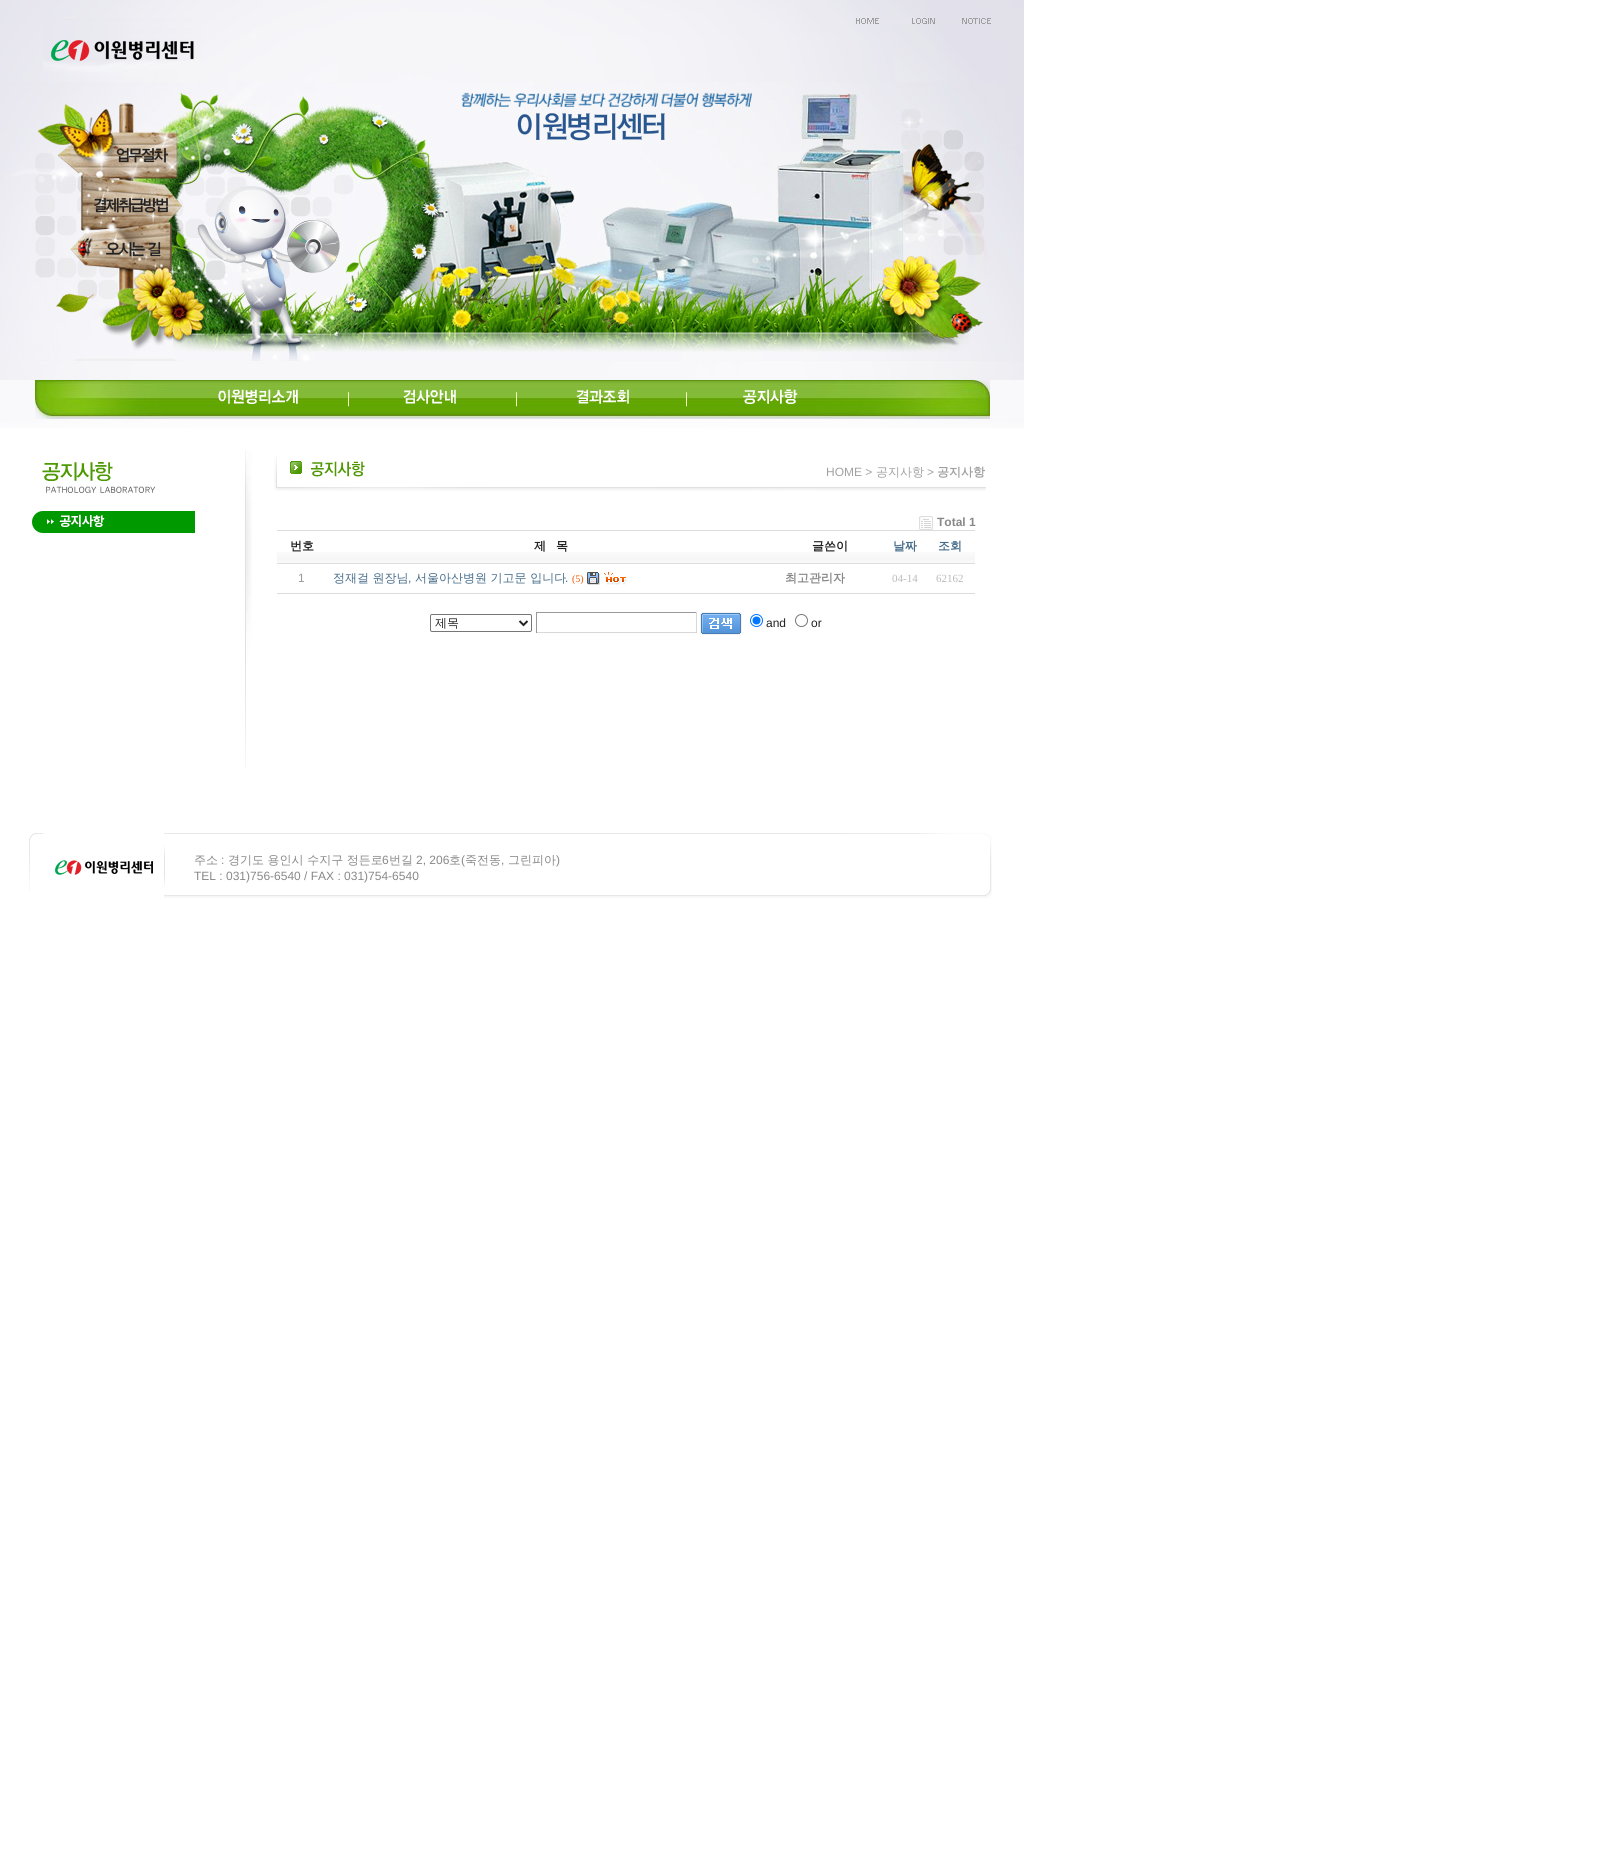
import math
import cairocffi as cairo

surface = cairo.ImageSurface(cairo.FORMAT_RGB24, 1604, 1872)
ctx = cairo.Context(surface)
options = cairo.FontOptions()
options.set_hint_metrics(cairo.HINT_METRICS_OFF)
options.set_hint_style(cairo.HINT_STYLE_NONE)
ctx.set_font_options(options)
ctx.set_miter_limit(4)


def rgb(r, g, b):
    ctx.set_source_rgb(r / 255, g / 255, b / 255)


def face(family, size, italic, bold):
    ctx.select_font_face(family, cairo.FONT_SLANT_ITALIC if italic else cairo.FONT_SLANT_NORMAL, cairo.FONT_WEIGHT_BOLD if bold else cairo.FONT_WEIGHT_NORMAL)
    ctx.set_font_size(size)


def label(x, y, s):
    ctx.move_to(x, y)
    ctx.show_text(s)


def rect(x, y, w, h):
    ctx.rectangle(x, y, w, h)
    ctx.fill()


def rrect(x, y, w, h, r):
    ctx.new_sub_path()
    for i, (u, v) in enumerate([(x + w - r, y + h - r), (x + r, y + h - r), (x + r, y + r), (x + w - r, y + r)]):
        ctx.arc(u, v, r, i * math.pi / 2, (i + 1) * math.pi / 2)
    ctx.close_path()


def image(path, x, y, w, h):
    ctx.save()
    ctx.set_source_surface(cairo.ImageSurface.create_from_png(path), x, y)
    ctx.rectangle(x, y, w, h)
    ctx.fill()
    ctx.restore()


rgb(255, 255, 255)
ctx.paint()
image('image0.png', 0, 0, 1024, 18)
image('image1.png', 0, 18, 43, 64)
image('image2.png', 43, 18, 158, 64)
image('image3.png', 201, 18, 655, 6)
image('image4.png', 856, 18, 23, 6)
rgb(231, 230, 238)
rect(879, 18, 33, 6)
image('image5.png', 912, 18, 23, 6)
rgb(226, 225, 234)
rect(935, 18, 27, 6)
image('image6.png', 962, 18, 29, 6)
rect(991, 18, 33, 6)
image('image7.png', 201, 24, 823, 58)
image('image8.png', 0, 82, 189, 279)
image('image9.png', 189, 82, 835, 279)
image('image10.png', 0, 361, 1024, 19)
rgb(249, 248, 251)
rect(0, 380, 1024, 39)
image('image11.png', 35, 380, 955, 39)
image('image12.png', 218, 389, 131, 18)
image('image13.png', 403, 389, 114, 18)
image('image14.png', 576, 389, 111, 18)
image('image15.png', 743, 384, 94, 31)
image('image16.png', 0, 419, 1024, 9)
image('image17.png', 42, 459, 114, 34)
image('image18.png', 32, 511, 163, 22)
image('image19.png', 245, 450, 7, 318)
image('image20.png', 274, 456, 712, 35)
face('Liberation Sans', 12, 0, 0)
rgb(161, 161, 161)
label(826, 476, 'HOME >')
face('WenQuanYi Zen Hei Medium', 12, 0, 0)
label(876, 476, '공지사항')
face('Liberation Sans', 12, 0, 0)
label(927, 476, '>')
face('WenQuanYi Zen Hei', 12, 0, 1)
label(937, 476, '공지사항')
image('image21.png', 919, 516, 14, 14)
face('Liberation Sans', 12, 0, 1)
rgb(136, 136, 136)
label(937, 526, 'Total 1')
image('image22.png', 277, 552, 50, 11)
rgb(221, 221, 221)
rect(277, 530, 698, 1)
rect(277, 563, 698, 1)
face('WenQuanYi Zen Hei', 12, 0, 1)
rgb(34, 34, 34)
label(290, 550, '번호')
image('image23.png', 327, 552, 448, 11)
label(534, 550, '제')
label(556, 550, '목')
image('image24.png', 775, 552, 110, 11)
label(812, 550, '글쓴이')
image('image25.png', 885, 552, 40, 11)
rgb(70, 108, 138)
label(893, 550, '날짜')
image('image22.png', 925, 552, 50, 11)
label(938, 550, '조회')
rgb(221, 221, 221)
rect(277, 593, 50, 1)
face('Liberation Sans', 12, 0, 0)
rgb(153, 153, 153)
label(298, 582, '1')
face('WenQuanYi Zen Hei Medium', 12, 0, 0)
rgb(70, 108, 138)
label(333, 582, '정재걸 원장님')
face('Liberation Sans', 12, 0, 0)
label(408, 582, ',')
face('WenQuanYi Zen Hei Medium', 12, 0, 0)
label(415, 582, '서울아산병원 기고문 입니다')
face('Liberation Sans', 12, 0, 0)
label(565, 582, '.')
face('Liberation Serif', 10, 0, 0)
rgb(238, 90, 0)
label(572, 582, '(5)')
image('image26.png', 587, 572, 13, 13)
image('image27.png', 604, 572, 24, 13)
rgb(221, 221, 221)
rect(327, 593, 648, 1)
face('WenQuanYi Zen Hei', 12, 0, 1)
rgb(136, 136, 136)
label(785, 582, '최고관리자')
face('Liberation Serif', 11, 0, 0)
rgb(186, 186, 186)
label(892, 582, '04-14')
label(936, 582, '62162')
rrect(430.5, 614.5, 101, 17, 1.5)
rgb(118, 118, 118)
ctx.set_line_width(1)
ctx.stroke()
ctx.new_path()
ctx.move_to(519.5, 621)
ctx.line_to(523.5, 625)
ctx.line_to(527.5, 621)
rgb(34, 34, 34)
ctx.set_line_width(2)
ctx.stroke()
face('WenQuanYi Zen Hei Medium', 12, 0, 0)
label(435, 627, '제목')
rgb(154, 154, 154)
rect(536, 612, 161, 1)
rgb(216, 216, 216)
rect(696, 612, 1, 21)
rect(536, 632, 161, 1)
rgb(154, 154, 154)
rect(536, 612, 1, 21)
image('image28.png', 700, 612, 42, 23)
ctx.arc(756.5, 620.5, 6, 0, 2 * math.pi)
rgb(0, 117, 255)
ctx.set_line_width(1)
ctx.stroke()
ctx.arc(756.5, 620.5, 4, 0, 2 * math.pi)
ctx.fill()
face('Liberation Sans', 12, 0, 0)
rgb(34, 34, 34)
label(766, 627, 'and')
ctx.new_path()
ctx.arc(801.5, 620.5, 6, 0, 2 * math.pi)
rgb(118, 118, 118)
ctx.stroke()
rgb(34, 34, 34)
label(811, 627, 'or')
image('image29.png', 29, 833, 14, 58)
image('image30.png', 55, 860, 98, 15)
image('image31.png', 164, 833, 828, 65)
face('WenQuanYi Zen Hei Medium', 12, 0, 0)
rgb(136, 136, 136)
label(194, 864, '주소')
face('Liberation Sans', 12, 0, 0)
label(221, 864, ':')
face('WenQuanYi Zen Hei Medium', 12, 0, 0)
label(228, 864, '경기도 용인시 수지구 정든로')
face('Liberation Sans', 12, 0, 0)
label(382, 864, '6')
face('WenQuanYi Zen Hei Medium', 12, 0, 0)
label(389, 864, '번길')
face('Liberation Sans', 12, 0, 0)
label(416, 864, '2, 206')
face('WenQuanYi Zen Hei Medium', 12, 0, 0)
label(449, 864, '호')
face('Liberation Sans', 12, 0, 0)
label(461, 864, '(')
face('WenQuanYi Zen Hei Medium', 12, 0, 0)
label(465, 864, '죽전동')
face('Liberation Sans', 12, 0, 0)
label(501, 864, ',')
face('WenQuanYi Zen Hei Medium', 12, 0, 0)
label(508, 864, '그린피아')
face('Liberation Sans', 12, 0, 0)
label(556, 864, ')')
label(194, 880, 'TEL : 031)756-6540 / FAX : 031)754-6540')
surface.write_to_png('render.png')
